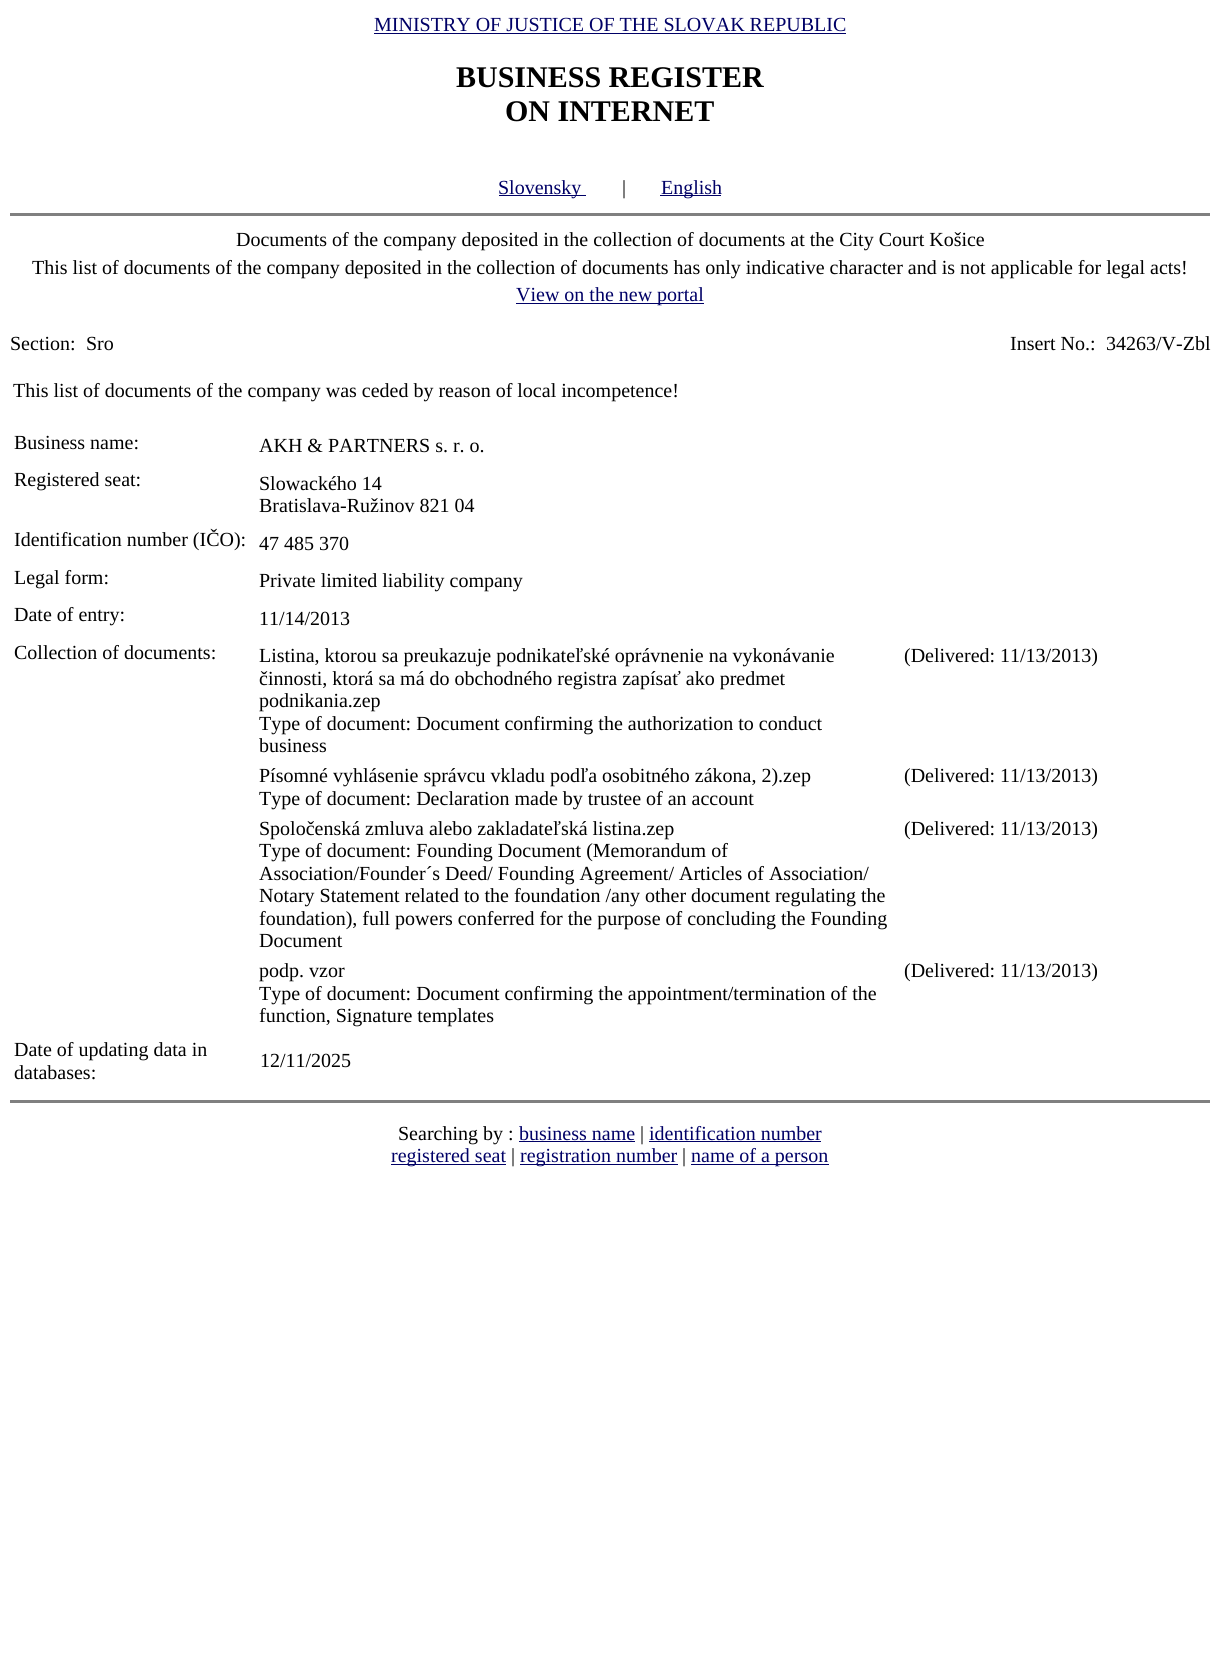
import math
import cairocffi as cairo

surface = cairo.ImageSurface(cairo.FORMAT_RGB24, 1220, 1665)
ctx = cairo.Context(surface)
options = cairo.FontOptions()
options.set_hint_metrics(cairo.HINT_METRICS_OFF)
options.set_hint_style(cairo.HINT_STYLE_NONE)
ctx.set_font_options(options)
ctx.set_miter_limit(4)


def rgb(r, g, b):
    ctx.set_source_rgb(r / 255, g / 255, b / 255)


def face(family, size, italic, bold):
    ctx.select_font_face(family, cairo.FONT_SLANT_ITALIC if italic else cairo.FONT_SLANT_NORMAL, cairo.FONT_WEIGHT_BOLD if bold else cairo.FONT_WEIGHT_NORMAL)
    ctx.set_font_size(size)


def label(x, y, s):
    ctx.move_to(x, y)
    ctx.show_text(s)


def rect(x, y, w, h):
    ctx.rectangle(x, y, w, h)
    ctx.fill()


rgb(255, 255, 255)
ctx.paint()
face('Liberation Serif', 20, 0, 0)
rgb(0, 0, 102)
label(374, 31, 'MINISTRY OF JUSTICE OF THE SLOVAK REPUBLIC')
rect(374, 33, 472, 1)
face('Liberation Serif', 30, 0, 1)
rgb(0, 0, 0)
label(456, 87, 'BUSINESS REGISTER')
label(505, 121, 'ON INTERNET')
rgb(0, 0, 102)
rect(499, 195, 87, 1)
face('Liberation Serif', 20, 0, 0)
label(498, 194, 'Slovensky')
rgb(0, 0, 0)
label(622, 194, '|')
rgb(0, 0, 102)
rect(660, 195, 61, 1)
label(661, 194, 'English')
rgb(128, 128, 128)
rect(10, 213, 1200, 3)
rgb(0, 0, 0)
label(236, 246, 'Documents of the company deposited in the collection of documents at the City Court Košice')
label(32, 274, 'This list of documents of the company deposited in the collection of documents has only indicative character and is not applicable for legal acts!')
rgb(0, 0, 102)
rect(516, 303, 188, 1)
label(516, 301, 'View on the new portal')
rgb(0, 0, 0)
label(10, 350, 'Section:')
label(86, 350, 'Sro')
label(1010, 350, 'Insert No.:')
label(1106, 350, '34263/V-Zbl')
label(13, 397, 'This list of documents of the company was ceded by reason of local incompetence!')
label(14, 449, 'Business name:')
label(259, 452, 'AKH & PARTNERS s. r. o.')
label(14, 486, 'Registered seat:')
label(259, 490, 'Slowackého 14')
label(259, 512, 'Bratislava-Ružinov 821 04')
label(14, 546, 'Identification number (IČO):')
label(259, 550, '47 485 370')
label(14, 584, 'Legal form:')
label(259, 587, 'Private limited liability company')
label(14, 621, 'Date of entry:')
label(259, 625, '11/14/2013')
label(14, 659, 'Collection of documents:')
label(259, 662, 'Listina, ktorou sa preukazuje podnikateľské oprávnenie na vykonávanie')
label(259, 685, 'činnosti, ktorá sa má do obchodného registra zapísať ako predmet')
label(259, 707, 'podnikania.zep')
label(259, 730, 'Type of document: Document confirming the authorization to conduct')
label(259, 752, 'business')
label(904, 662, '(Delivered: 11/13/2013)')
label(259, 782, 'Písomné vyhlásenie správcu vkladu podľa osobitného zákona, 2).zep')
label(259, 805, 'Type of document: Declaration made by trustee of an account')
label(904, 782, '(Delivered: 11/13/2013)')
label(259, 835, 'Spoločenská zmluva alebo zakladateľská listina.zep')
label(259, 857, 'Type of document: Founding Document (Memorandum of')
label(259, 880, 'Association/Founder´s Deed/ Founding Agreement/ Articles of Association/')
label(259, 902, 'Notary Statement related to the foundation /any other document regulating the')
label(259, 925, 'foundation), full powers conferred for the purpose of concluding the Founding')
label(259, 947, 'Document')
label(904, 835, '(Delivered: 11/13/2013)')
label(259, 977, 'podp. vzor')
label(259, 1000, 'Type of document: Document confirming the appointment/termination of the')
label(259, 1022, 'function, Signature templates')
label(904, 977, '(Delivered: 11/13/2013)')
label(14, 1056, 'Date of updating data in')
label(14, 1079, 'databases:')
label(260, 1067, '12/11/2025')
rgb(128, 128, 128)
rect(10, 1100, 1200, 3)
rgb(0, 0, 0)
label(398, 1140, 'Searching by :')
rgb(0, 0, 102)
label(519, 1140, 'business name')
rect(519, 1141, 116, 1)
rgb(0, 0, 0)
label(640, 1140, '|')
rgb(0, 0, 102)
label(649, 1140, 'identification number')
rect(649, 1141, 172, 1)
rect(391, 1164, 115, 1)
label(391, 1162, 'registered seat')
rgb(0, 0, 0)
label(511, 1162, '|')
rgb(0, 0, 102)
rect(520, 1164, 158, 1)
label(520, 1162, 'registration number')
rgb(0, 0, 0)
label(682, 1162, '|')
rgb(0, 0, 102)
rect(691, 1164, 138, 1)
label(691, 1162, 'name of a person')
surface.write_to_png('render.png')
